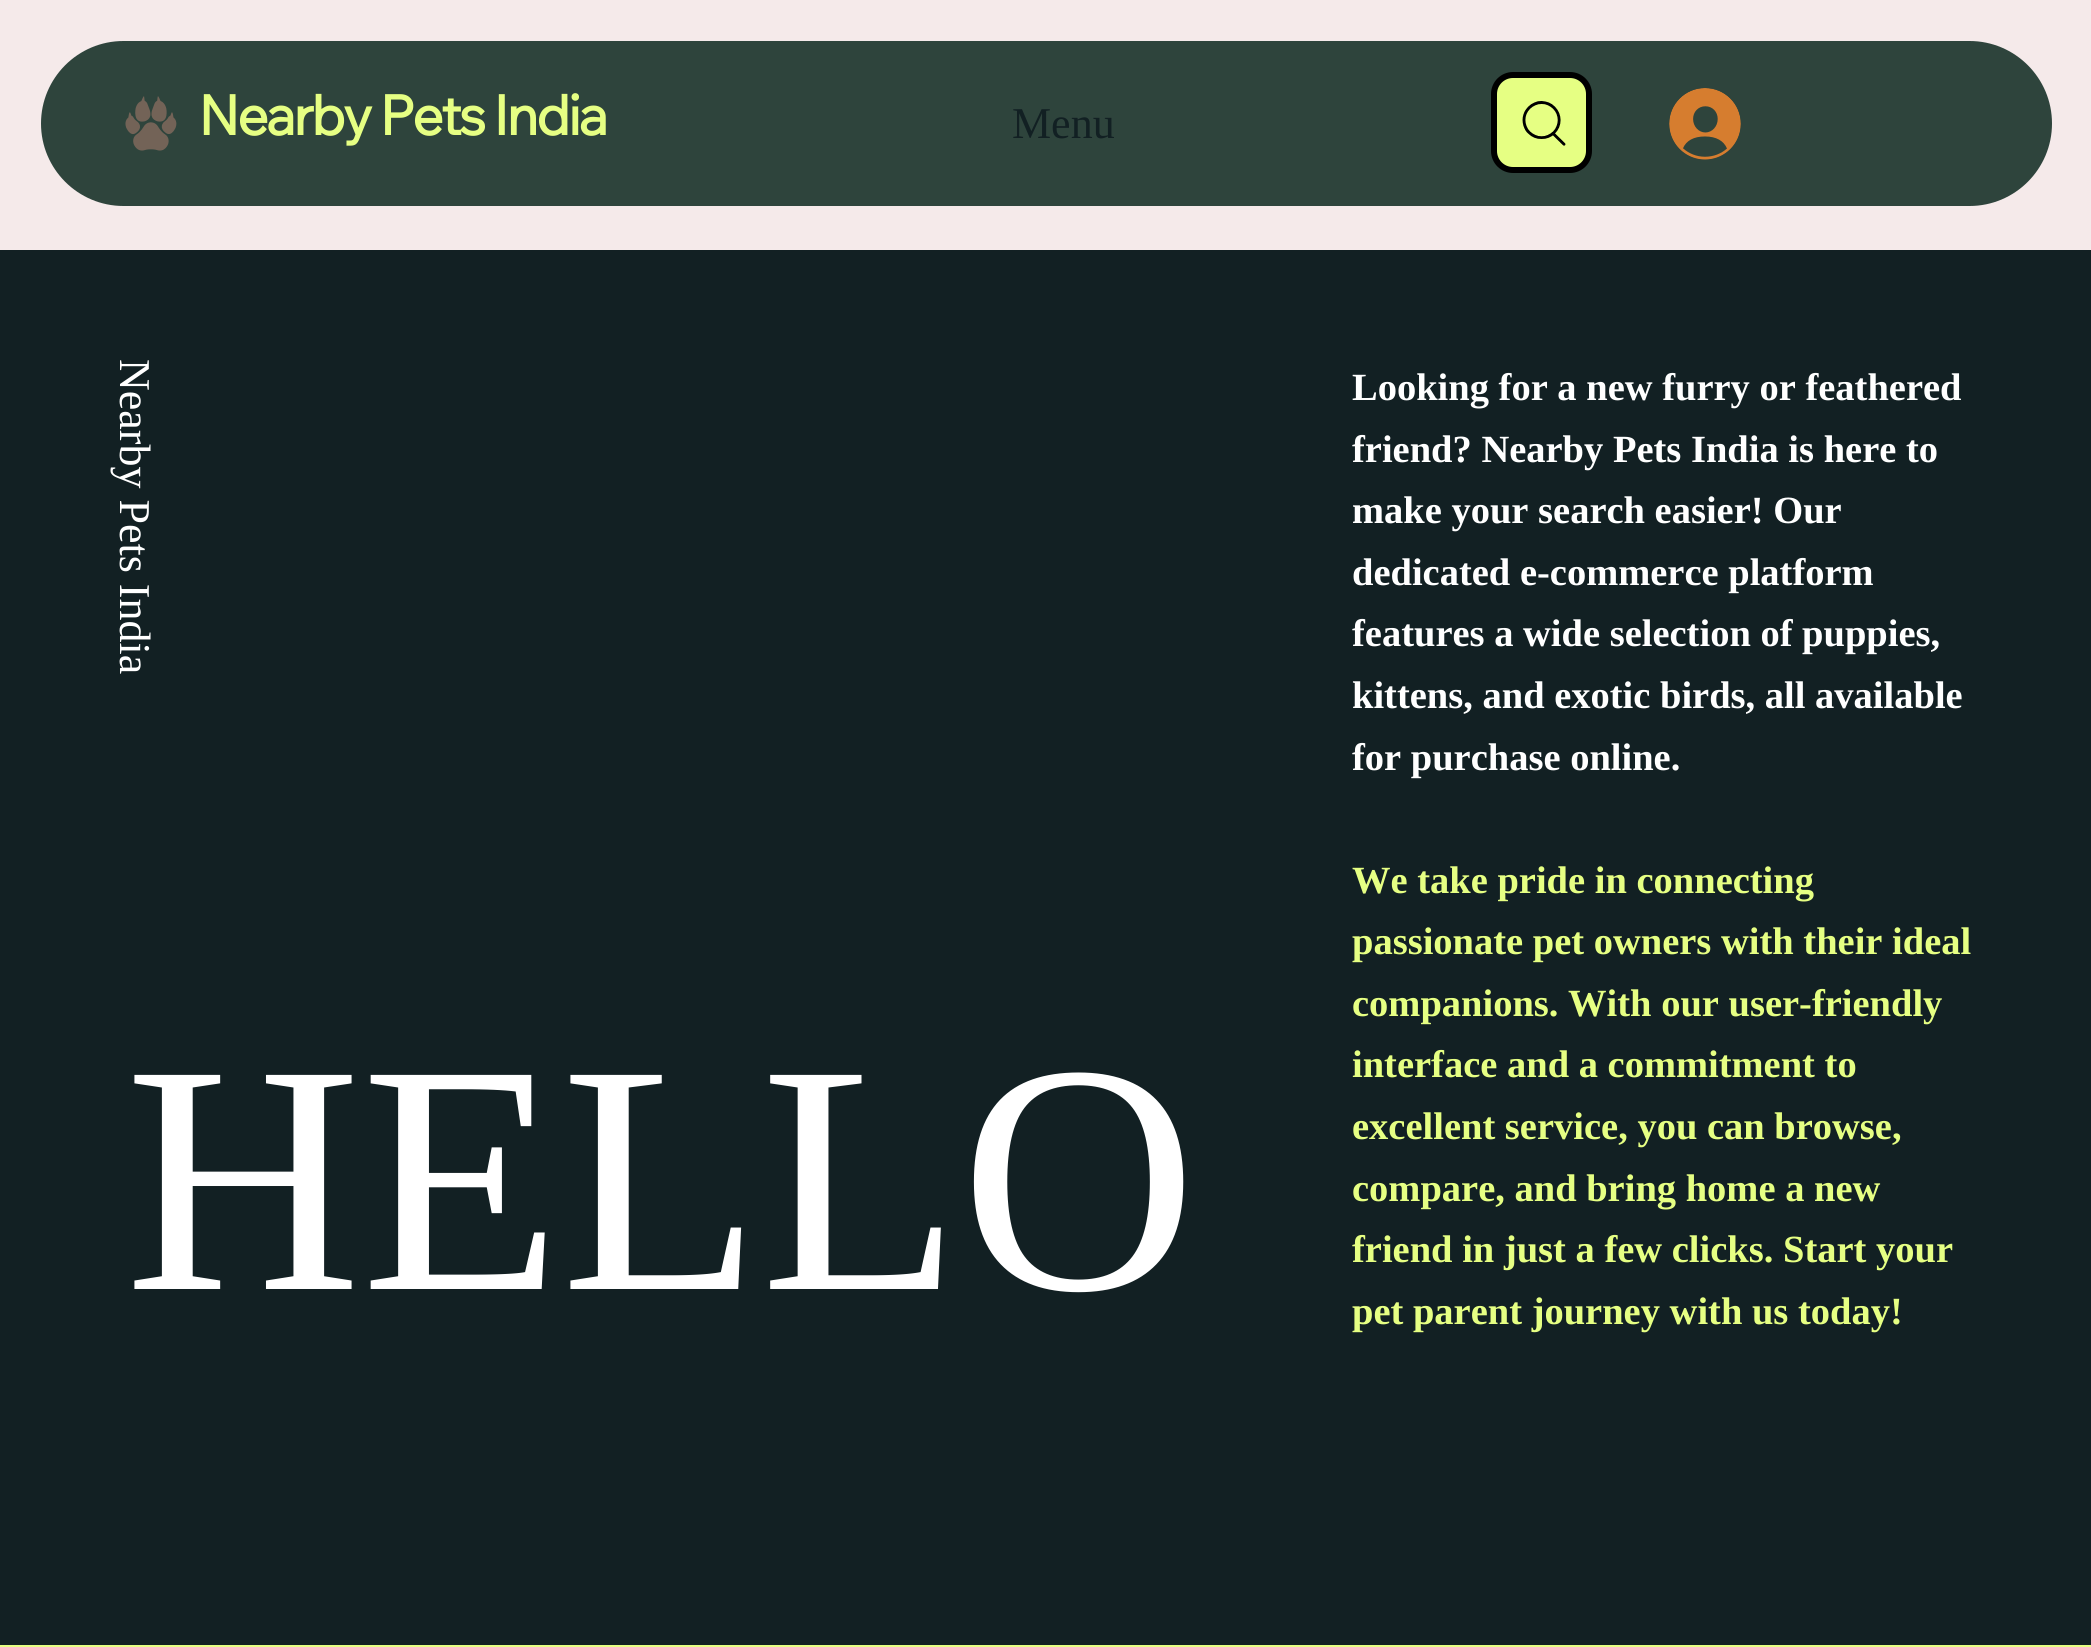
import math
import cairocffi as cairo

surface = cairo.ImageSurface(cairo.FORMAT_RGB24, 2091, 1647)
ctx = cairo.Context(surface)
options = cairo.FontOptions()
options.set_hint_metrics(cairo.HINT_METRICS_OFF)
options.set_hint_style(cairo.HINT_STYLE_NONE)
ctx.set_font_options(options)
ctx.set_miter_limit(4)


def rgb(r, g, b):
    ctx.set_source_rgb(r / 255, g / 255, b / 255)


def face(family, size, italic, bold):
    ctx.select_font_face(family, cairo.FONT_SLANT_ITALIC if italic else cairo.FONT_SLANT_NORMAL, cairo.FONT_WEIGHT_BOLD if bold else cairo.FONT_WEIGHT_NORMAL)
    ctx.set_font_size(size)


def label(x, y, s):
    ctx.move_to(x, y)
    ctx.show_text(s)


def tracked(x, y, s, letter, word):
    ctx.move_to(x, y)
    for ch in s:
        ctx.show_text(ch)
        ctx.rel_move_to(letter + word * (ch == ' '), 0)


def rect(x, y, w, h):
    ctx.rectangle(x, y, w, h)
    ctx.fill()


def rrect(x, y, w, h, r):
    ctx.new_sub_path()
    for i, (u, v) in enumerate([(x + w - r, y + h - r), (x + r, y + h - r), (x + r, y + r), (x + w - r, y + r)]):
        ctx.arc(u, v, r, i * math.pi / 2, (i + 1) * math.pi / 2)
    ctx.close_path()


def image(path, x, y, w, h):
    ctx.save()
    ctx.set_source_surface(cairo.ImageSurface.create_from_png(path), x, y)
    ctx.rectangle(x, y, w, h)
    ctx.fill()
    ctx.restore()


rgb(230, 255, 131)
ctx.paint()
rgb(245, 234, 234)
rect(0, 0, 2091, 250)
rgb(46, 68, 60)
ctx.new_path()
ctx.move_to(123.5, 41)
ctx.line_to(685, 41)
ctx.line_to(685, 206)
ctx.line_to(123.5, 206)
ctx.curve_to(78, 206, 41, 169, 41, 123.5)
ctx.curve_to(41, 78, 78, 41, 123.5, 41)
ctx.close_path()
ctx.fill()
image('image0.png', 125, 96, 52, 55)
face('Wix Madefor Text', 55, 0, 1)
rgb(230, 255, 131)
tracked(198, 135, 'Nearby Pets India', -2.75, 0)
rgb(46, 68, 60)
rect(685, 41, 668, 165)
face('Liberation Serif', 44, 0, 0)
rgb(18, 32, 35)
label(1012, 138, 'Menu')
rgb(46, 68, 60)
ctx.new_path()
ctx.move_to(1353, 41)
ctx.line_to(1969.5, 41)
ctx.curve_to(2015, 41, 2052, 78, 2052, 123.5)
ctx.curve_to(2052, 169, 2015, 206, 1969.5, 206)
ctx.line_to(1353, 206)
ctx.close_path()
ctx.fill()
rgb(230, 255, 131)
rrect(1494, 75, 95, 95, 19)
ctx.fill_preserve()
rgb(0, 0, 0)
ctx.set_line_width(6)
ctx.stroke()
image('image1.png', 1522, 101, 44, 45)
image('image2.png', 1669, 88, 72, 72)
rgb(18, 32, 35)
rect(0, 250, 2091, 1395)
rgb(255, 255, 255)
ctx.save()
ctx.translate(120, 359)
ctx.rotate(90 * math.pi / 180)
label(0, 0, 'Nearby Pets India')
ctx.restore()
face('Liberation Serif', 327, 0, 0)
label(125, 1289, 'HELLO')
face('Liberation Serif', 38.5, 0, 1)
label(1352, 400, 'Looking for a new furry or feathered')
label(1352, 462, 'friend? Nearby Pets India is here to')
label(1352, 523, 'make your search easier! Our')
label(1352, 585, 'dedicated e-commerce platform')
label(1352, 646, 'features a wide selection of puppies,')
label(1352, 708, 'kittens, and exotic birds, all available')
label(1352, 770, 'for purchase online.')
rgb(230, 255, 131)
label(1352, 893, 'We take pride in connecting')
label(1352, 954, 'passionate pet owners with their ideal')
label(1352, 1016, 'companions. With our user-friendly')
label(1352, 1077, 'interface and a commitment to')
label(1352, 1139, 'excellent service, you can browse,')
label(1352, 1201, 'compare, and bring home a new')
label(1352, 1262, 'friend in just a few clicks. Start your')
label(1352, 1324, 'pet parent journey with us today!')
surface.write_to_png('render.png')
